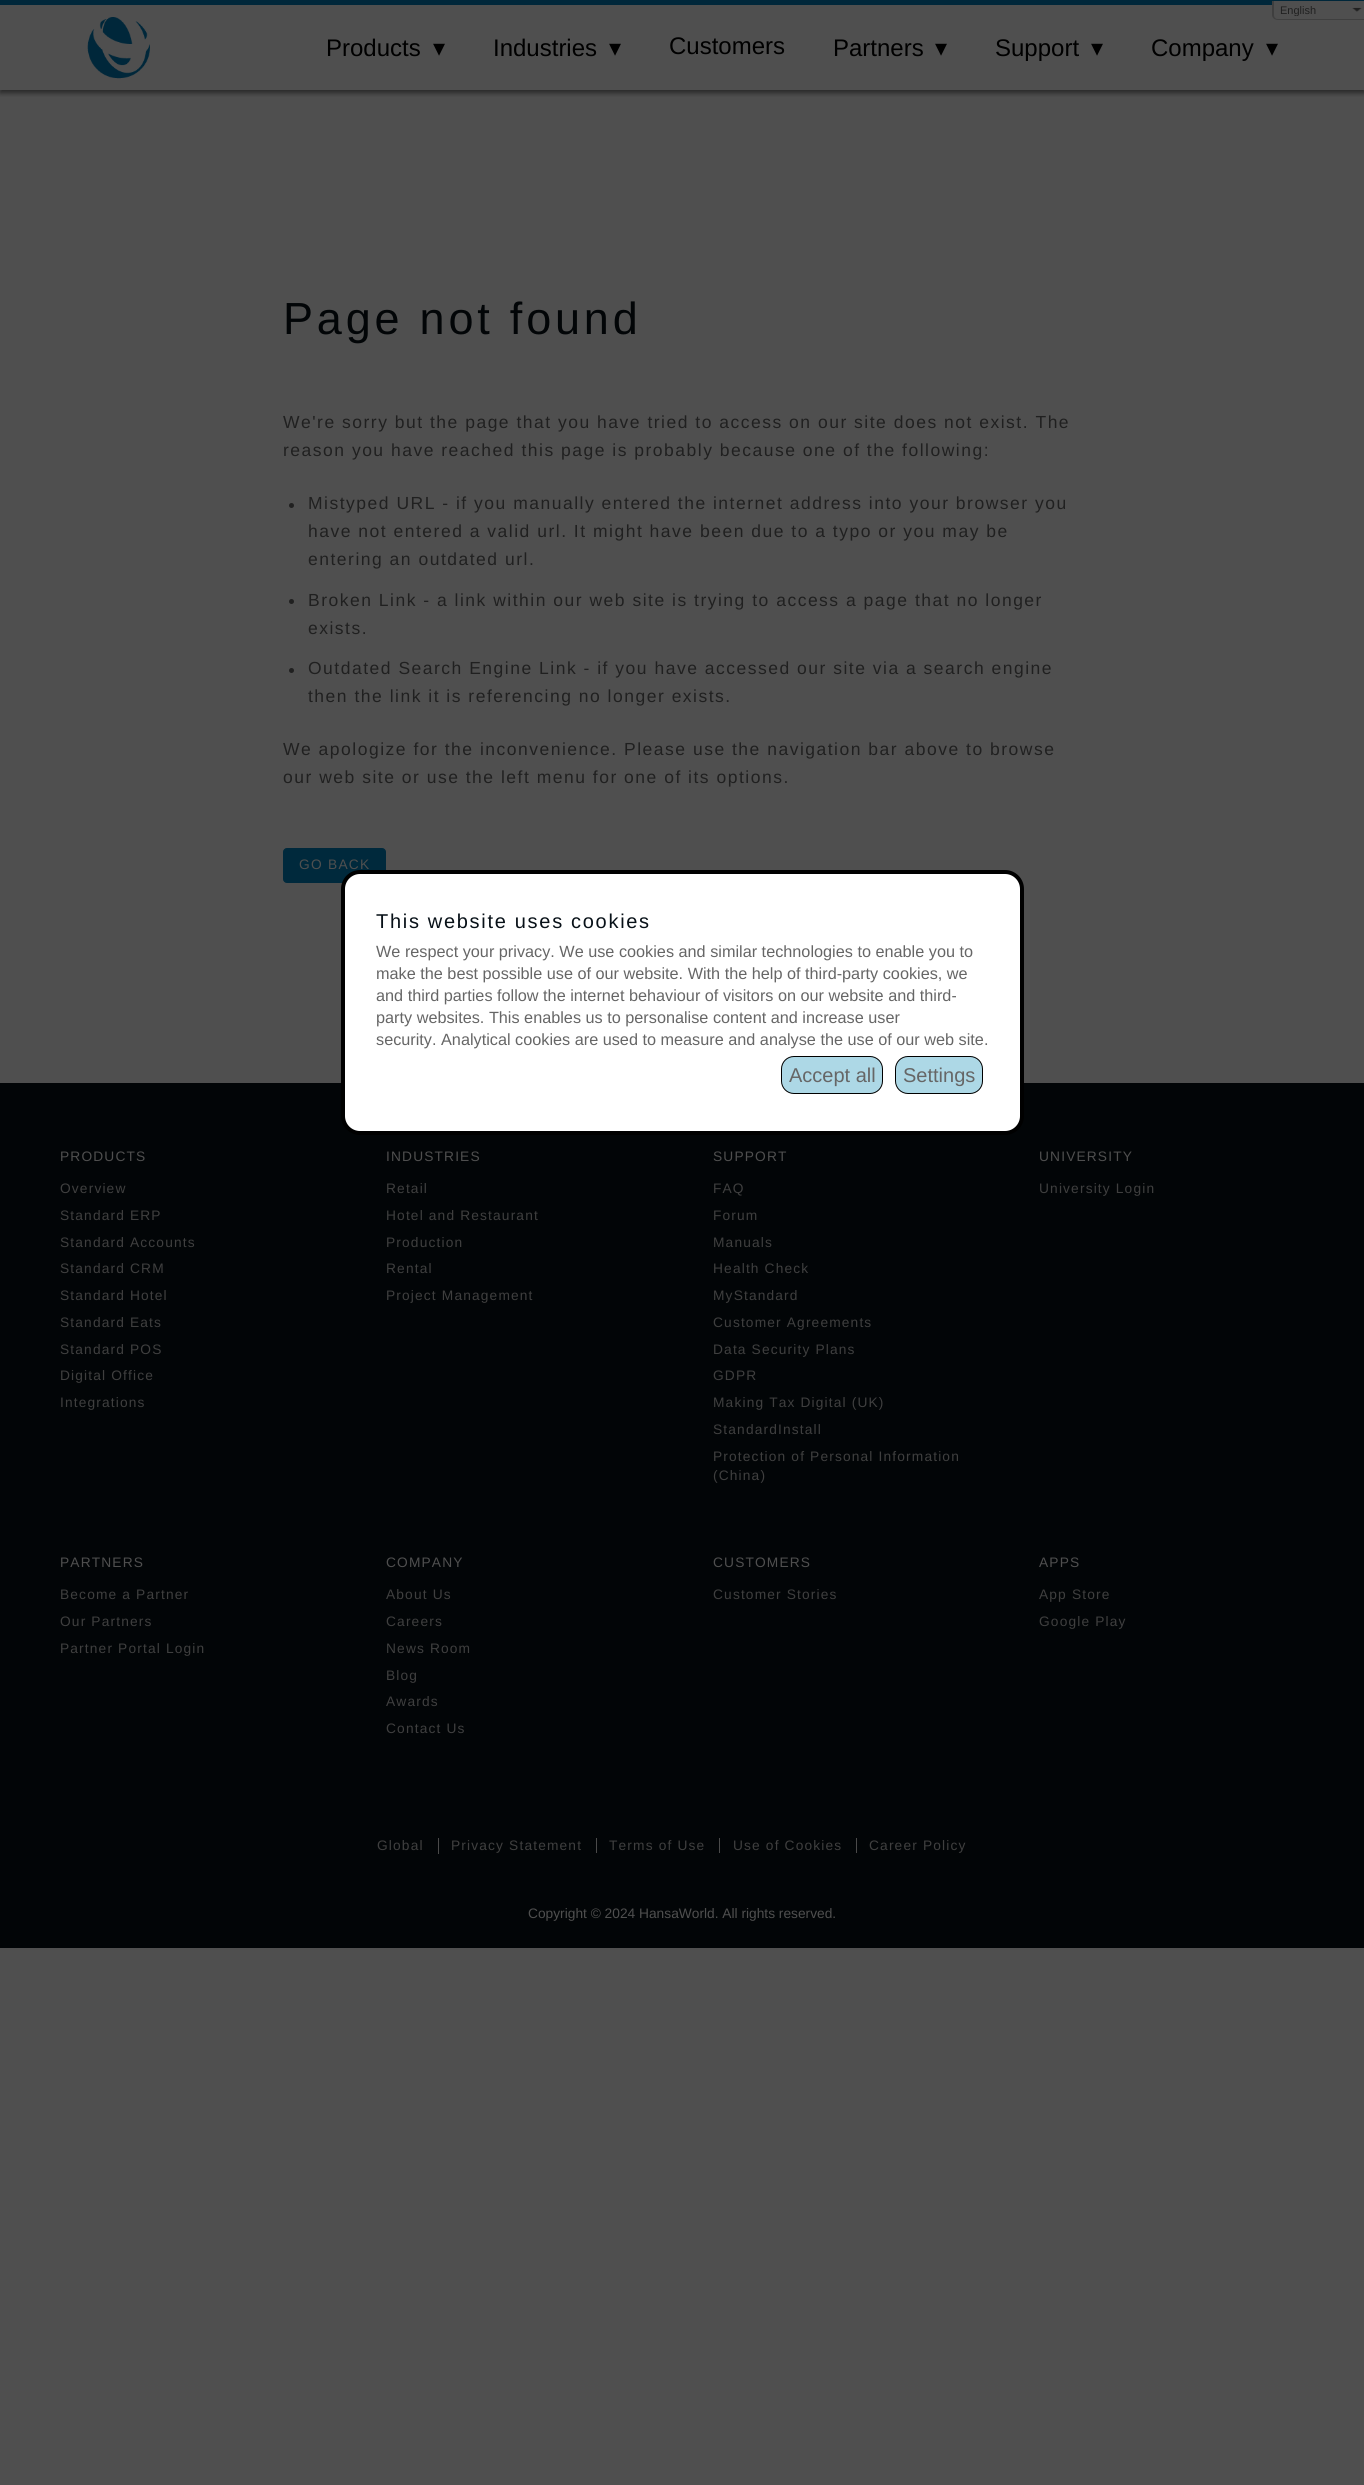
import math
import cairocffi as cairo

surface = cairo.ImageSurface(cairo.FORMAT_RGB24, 1364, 2485)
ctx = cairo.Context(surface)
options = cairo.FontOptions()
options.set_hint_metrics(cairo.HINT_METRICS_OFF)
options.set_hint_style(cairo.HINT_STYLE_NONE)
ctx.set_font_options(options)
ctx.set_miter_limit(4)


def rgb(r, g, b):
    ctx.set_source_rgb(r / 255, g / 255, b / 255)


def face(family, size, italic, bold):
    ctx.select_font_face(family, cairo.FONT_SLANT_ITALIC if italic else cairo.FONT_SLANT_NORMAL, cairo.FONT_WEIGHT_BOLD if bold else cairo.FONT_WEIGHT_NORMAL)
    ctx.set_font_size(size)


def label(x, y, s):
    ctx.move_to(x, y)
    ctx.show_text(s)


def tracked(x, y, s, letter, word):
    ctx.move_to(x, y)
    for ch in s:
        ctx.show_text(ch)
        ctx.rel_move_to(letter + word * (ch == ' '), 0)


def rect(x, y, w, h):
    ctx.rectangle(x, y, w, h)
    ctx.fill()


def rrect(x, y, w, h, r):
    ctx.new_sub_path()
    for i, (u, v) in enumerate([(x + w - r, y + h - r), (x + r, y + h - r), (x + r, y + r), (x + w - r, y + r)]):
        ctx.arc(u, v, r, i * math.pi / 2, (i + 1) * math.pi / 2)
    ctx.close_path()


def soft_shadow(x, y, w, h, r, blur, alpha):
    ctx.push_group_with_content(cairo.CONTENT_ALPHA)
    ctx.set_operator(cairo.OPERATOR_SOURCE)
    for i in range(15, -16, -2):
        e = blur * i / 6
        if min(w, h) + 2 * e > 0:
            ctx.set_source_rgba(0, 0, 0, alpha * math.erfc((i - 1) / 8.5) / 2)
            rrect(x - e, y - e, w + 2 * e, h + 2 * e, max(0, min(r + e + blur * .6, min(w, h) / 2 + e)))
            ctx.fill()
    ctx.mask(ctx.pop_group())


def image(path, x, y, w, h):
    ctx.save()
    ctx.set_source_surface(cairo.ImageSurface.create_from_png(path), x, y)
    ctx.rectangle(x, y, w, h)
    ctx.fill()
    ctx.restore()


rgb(79, 79, 79)
ctx.paint()
ctx.save()
ctx.rectangle(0, 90, 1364, 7)
ctx.clip()
rgb(0, 0, 0)
soft_shadow(0, 3, 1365, 90, 0, 2.5, 0.5)
ctx.restore()
rgb(0, 39, 58)
rect(0, 0, 1364, 5)
rgb(79, 79, 79)
ctx.new_path()
ctx.move_to(1273, 1)
ctx.line_to(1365, 1)
ctx.line_to(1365, 20)
ctx.line_to(1278, 20)
ctx.curve_to(1275, 20, 1273, 18, 1273, 15)
ctx.close_path()
ctx.fill()
image('image0.png', 1352, 7, 10, 5)
rgb(63, 63, 63)
ctx.set_fill_rule(cairo.FILL_RULE_EVEN_ODD)
ctx.new_path()
ctx.move_to(1272, 1)
ctx.line_to(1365, 1)
ctx.line_to(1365, 20)
ctx.line_to(1278, 20)
ctx.curve_to(1275, 20, 1272, 18, 1272, 15)
ctx.close_path()
ctx.move_to(1274, 1)
ctx.line_to(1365, 1)
ctx.line_to(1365, 19)
ctx.line_to(1278, 19)
ctx.curve_to(1275, 19, 1274, 17, 1274, 15)
ctx.close_path()
ctx.fill()
ctx.save()
ctx.set_fill_rule(cairo.FILL_RULE_WINDING)
ctx.rectangle(1280, 4, 41, 12)
ctx.clip()
face('Liberation Sans', 11, 0, 0)
rgb(32, 32, 32)
label(1280, 14, 'English')
ctx.restore()
image('image1.png', 87, 17, 63, 62)
face('Liberation Sans', 24, 0, 0)
rgb(0, 0, 0)
label(326, 56, 'Products')
face('DejaVu Sans', 24, 0, 0)
label(433, 56, '▾')
face('Liberation Sans', 24, 0, 0)
label(493, 56, 'Industries')
face('DejaVu Sans', 24, 0, 0)
label(609, 56, '▾')
face('Liberation Sans', 24, 0, 0)
label(669, 54, 'Customers')
label(833, 56, 'Partners')
face('DejaVu Sans', 24, 0, 0)
label(935, 56, '▾')
face('Liberation Sans', 24, 0, 0)
label(995, 56, 'Support')
face('DejaVu Sans', 24, 0, 0)
label(1091, 56, '▾')
face('Liberation Sans', 24, 0, 0)
label(1151, 56, 'Company')
face('DejaVu Sans', 24, 0, 0)
label(1266, 56, '▾')
face('Liberation Sans', 45, 0, 0)
rgb(2, 5, 7)
tracked(283, 334, 'Page not found', 3.8, 0)
face('Liberation Sans', 17.5, 0, 0)
rgb(32, 32, 32)
tracked(283, 428, 'We\'re sorry but the page that you have tried to access on our site does not exist. The', 1.5, 0)
tracked(283, 456, 'reason you have reached this page is probably because one of the following:', 1.5, 0)
ctx.new_path()
ctx.arc(291.5, 505.5, 2.5, 0, 2 * math.pi)
ctx.fill()
tracked(308, 509, 'Mistyped URL - if you manually entered the internet address into your browser you', 1.5, 0)
tracked(308, 537, 'have not entered a valid url. It might have been due to a typo or you may be', 1.5, 0)
tracked(308, 565, 'entering an outdated url.', 1.5, 0)
ctx.new_path()
ctx.arc(291.5, 601.5, 2.5, 0, 2 * math.pi)
ctx.fill()
tracked(308, 606, 'Broken Link - a link within our web site is trying to access a page that no longer', 1.5, 0)
tracked(308, 634, 'exists.', 1.5, 0)
ctx.new_path()
ctx.arc(291.5, 670.5, 2.5, 0, 2 * math.pi)
ctx.fill()
tracked(308, 674, 'Outdated Search Engine Link - if you have accessed our site via a search engine', 1.5, 0)
tracked(308, 702, 'then the link it is referencing no longer exists.', 1.5, 0)
tracked(283, 755, 'We apologize for the inconvenience. Please use the navigation bar above to browse', 1.5, 0)
tracked(283, 783, 'our web site or use the left menu for one of its options.', 1.5, 0)
rgb(0, 41, 60)
rrect(283.5, 848.5, 102, 34, 3.5)
ctx.fill_preserve()
ctx.set_line_width(1)
ctx.stroke()
face('Liberation Sans', 13.75, 0, 0)
rgb(79, 79, 79)
tracked(299, 869, 'GO BACK', 1.25, 0)
rgb(2, 5, 7)
rect(0, 1083, 1364, 865)
rgb(255, 255, 255)
rrect(343, 872, 679, 261, 17)
ctx.fill_preserve()
rgb(0, 0, 0)
ctx.set_line_width(4)
ctx.stroke()
face('Liberation Sans', 20, 0, 0)
rgb(8, 17, 24)
tracked(376, 928, 'This website uses cookies', 1.7, 0)
face('Liberation Sans', 16.25, 0, 0)
rgb(102, 102, 102)
label(376, 957, 'We respect your privacy. We use cookies and similar technologies to enable you to')
label(376, 979, 'make the best possible use of our website. With the help of third-party cookies, we')
label(376, 1001, 'and third parties follow the internet behaviour of visitors on our website and third-')
label(376, 1023, 'party websites. This enables us to personalise content and increase user')
label(376, 1045, 'security. Analytical cookies are used to measure and analyse the use of our web site.')
rgb(173, 216, 230)
rrect(781.5, 1056.5, 101, 37, 12.5)
ctx.fill_preserve()
rgb(0, 0, 0)
ctx.set_line_width(1)
ctx.stroke()
face('Liberation Sans', 20, 0, 0)
rgb(102, 102, 102)
label(789, 1082, 'Accept all')
rgb(173, 216, 230)
rrect(895.5, 1056.5, 87, 37, 12.5)
ctx.fill_preserve()
rgb(0, 0, 0)
ctx.stroke()
rgb(102, 102, 102)
label(903, 1082, 'Settings')
face('Liberation Sans', 13.75, 0, 0)
rgb(79, 79, 79)
tracked(60, 1161, 'PRODUCTS', 1.15, 0)
rgb(63, 63, 63)
tracked(60, 1193, 'Overview', 1.15, 0)
tracked(60, 1220, 'Standard ERP', 1.15, 0)
tracked(60, 1247, 'Standard Accounts', 1.15, 0)
tracked(60, 1273, 'Standard CRM', 1.15, 0)
tracked(60, 1300, 'Standard Hotel', 1.15, 0)
tracked(60, 1327, 'Standard Eats', 1.15, 0)
tracked(60, 1354, 'Standard POS', 1.15, 0)
tracked(60, 1380, 'Digital Office', 1.15, 0)
tracked(60, 1407, 'Integrations', 1.15, 0)
rgb(79, 79, 79)
tracked(386, 1161, 'INDUSTRIES', 1.15, 0)
rgb(63, 63, 63)
tracked(386, 1193, 'Retail', 1.15, 0)
tracked(386, 1220, 'Hotel and Restaurant', 1.15, 0)
tracked(386, 1247, 'Production', 1.15, 0)
tracked(386, 1273, 'Rental', 1.15, 0)
tracked(386, 1300, 'Project Management', 1.15, 0)
rgb(79, 79, 79)
tracked(713, 1161, 'SUPPORT', 1.15, 0)
rgb(63, 63, 63)
tracked(713, 1193, 'FAQ', 1.15, 0)
tracked(713, 1220, 'Forum', 1.15, 0)
tracked(713, 1247, 'Manuals', 1.15, 0)
tracked(713, 1273, 'Health Check', 1.15, 0)
tracked(713, 1300, 'MyStandard', 1.15, 0)
tracked(713, 1327, 'Customer Agreements', 1.15, 0)
tracked(713, 1354, 'Data Security Plans', 1.15, 0)
tracked(713, 1380, 'GDPR', 1.15, 0)
tracked(713, 1407, 'Making Tax Digital (UK)', 1.15, 0)
tracked(713, 1434, 'StandardInstall', 1.15, 0)
tracked(713, 1461, 'Protection of Personal Information', 1.15, 0)
tracked(713, 1480, '(China)', 1.15, 0)
rgb(79, 79, 79)
tracked(1039, 1161, 'UNIVERSITY', 1.15, 0)
rgb(63, 63, 63)
tracked(1039, 1193, 'University Login', 1.15, 0)
rgb(79, 79, 79)
tracked(60, 1567, 'PARTNERS', 1.15, 0)
rgb(63, 63, 63)
tracked(60, 1599, 'Become a Partner', 1.15, 0)
tracked(60, 1626, 'Our Partners', 1.15, 0)
tracked(60, 1653, 'Partner Portal Login', 1.15, 0)
rgb(79, 79, 79)
tracked(386, 1567, 'COMPANY', 1.15, 0)
rgb(63, 63, 63)
tracked(386, 1599, 'About Us', 1.15, 0)
tracked(386, 1626, 'Careers', 1.15, 0)
tracked(386, 1653, 'News Room', 1.15, 0)
tracked(386, 1680, 'Blog', 1.15, 0)
tracked(386, 1706, 'Awards', 1.15, 0)
tracked(386, 1733, 'Contact Us', 1.15, 0)
rgb(79, 79, 79)
tracked(713, 1567, 'CUSTOMERS', 1.15, 0)
rgb(63, 63, 63)
tracked(713, 1599, 'Customer Stories', 1.15, 0)
rgb(79, 79, 79)
tracked(1039, 1567, 'APPS', 1.15, 0)
rgb(63, 63, 63)
tracked(1039, 1599, 'App Store', 1.15, 0)
tracked(1039, 1626, 'Google Play', 1.15, 0)
rgb(74, 74, 74)
rect(438, 1838, 1, 16)
rgb(63, 63, 63)
tracked(377, 1850, 'Global', 1.15, 0)
tracked(451, 1850, 'Privacy Statement', 1.15, 0)
rgb(74, 74, 74)
rect(596, 1838, 1, 15)
rgb(63, 63, 63)
tracked(609, 1850, 'Terms of Use', 1.15, 0)
rgb(74, 74, 74)
rect(719, 1838, 1, 15)
rgb(63, 63, 63)
tracked(733, 1850, 'Use of Cookies', 1.15, 0)
rgb(74, 74, 74)
rect(856, 1838, 1, 15)
rgb(63, 63, 63)
tracked(869, 1850, 'Career Policy', 1.15, 0)
rgb(79, 79, 79)
label(528, 1918, 'Copyright © 2024 HansaWorld. All rights reserved.')
surface.write_to_png('render.png')
